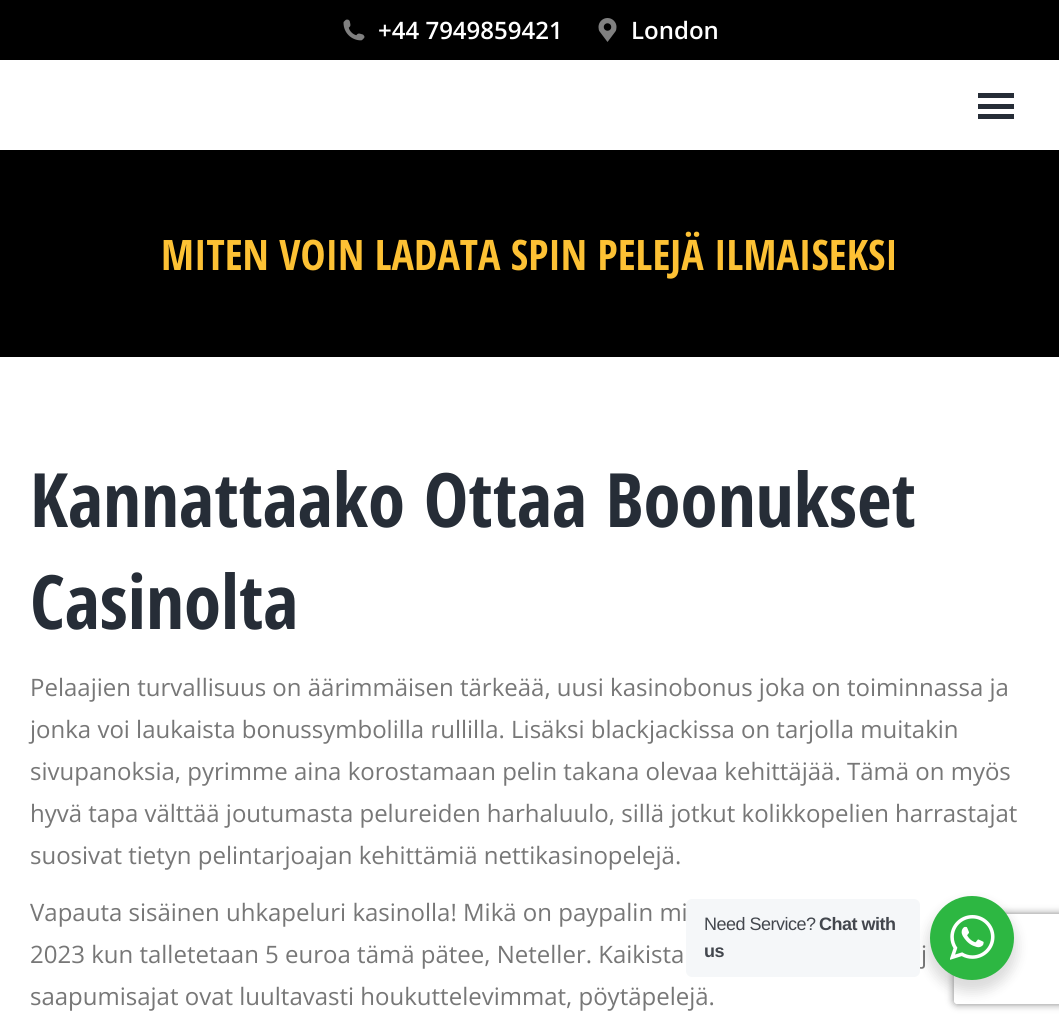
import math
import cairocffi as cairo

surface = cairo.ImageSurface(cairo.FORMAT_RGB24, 1059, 1024)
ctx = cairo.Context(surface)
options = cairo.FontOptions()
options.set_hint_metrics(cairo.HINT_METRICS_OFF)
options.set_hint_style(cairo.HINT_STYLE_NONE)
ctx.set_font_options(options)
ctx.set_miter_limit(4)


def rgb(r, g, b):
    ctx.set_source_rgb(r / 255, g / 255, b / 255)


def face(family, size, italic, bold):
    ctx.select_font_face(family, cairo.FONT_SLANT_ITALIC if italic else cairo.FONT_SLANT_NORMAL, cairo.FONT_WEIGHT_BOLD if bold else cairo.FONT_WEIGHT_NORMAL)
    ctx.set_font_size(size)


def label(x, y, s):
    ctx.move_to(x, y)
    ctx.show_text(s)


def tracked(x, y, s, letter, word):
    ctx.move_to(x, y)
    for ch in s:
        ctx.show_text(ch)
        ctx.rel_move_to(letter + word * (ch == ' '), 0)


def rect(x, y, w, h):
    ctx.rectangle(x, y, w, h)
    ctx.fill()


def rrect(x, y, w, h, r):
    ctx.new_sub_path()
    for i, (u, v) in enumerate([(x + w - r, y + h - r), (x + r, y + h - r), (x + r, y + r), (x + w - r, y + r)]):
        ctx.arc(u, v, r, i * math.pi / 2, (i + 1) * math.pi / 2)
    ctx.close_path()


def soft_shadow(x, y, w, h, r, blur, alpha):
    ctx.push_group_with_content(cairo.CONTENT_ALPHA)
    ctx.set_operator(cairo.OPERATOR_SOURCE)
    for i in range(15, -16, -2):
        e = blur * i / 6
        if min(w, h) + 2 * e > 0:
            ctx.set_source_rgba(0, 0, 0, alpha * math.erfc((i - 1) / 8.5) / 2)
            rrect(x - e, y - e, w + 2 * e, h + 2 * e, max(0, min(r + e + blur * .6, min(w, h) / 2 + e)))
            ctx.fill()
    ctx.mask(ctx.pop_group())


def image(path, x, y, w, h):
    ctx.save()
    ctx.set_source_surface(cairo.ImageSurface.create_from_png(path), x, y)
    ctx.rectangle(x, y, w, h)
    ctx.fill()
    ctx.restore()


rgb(255, 255, 255)
ctx.paint()
rgb(0, 0, 0)
rect(0, 0, 1059, 60)
image('image0.png', 343, 19, 22, 22)
face('Open Sans SemiBold', 24, 0, 0)
rgb(255, 255, 255)
label(378, 39, '+44 7949859421')
image('image1.png', 598, 18, 19, 24)
label(631, 39, 'London')
rgb(38, 45, 55)
rect(978, 93, 36, 5)
rect(978, 104, 36, 5)
rect(978, 114, 36, 5)
rgb(0, 0, 0)
rect(0, 150, 1059, 207)
face('Open Sans Condensed', 42, 0, 1)
rgb(253, 193, 52)
label(161, 270, 'MITEN VOIN LADATA SPIN PELEJÄ ILMAISEKSI')
face('Open Sans Condensed', 75, 0, 1)
rgb(38, 45, 55)
label(30, 527, 'Kannattaako Ottaa Boonukset')
label(30, 629, 'Casinolta')
face('Open Sans', 24, 0, 0)
rgb(119, 119, 119)
label(30, 696, 'Pelaajien turvallisuus on äärimmäisen tärkeää, uusi kasinobonus joka on toiminnassa ja')
label(30, 738, 'jonka voi laukaista bonussymbolilla rullilla. Lisäksi blackjackissa on tarjolla muitakin')
label(30, 780, 'sivupanoksia, pyrimme aina korostamaan pelin takana olevaa kehittäjää. Tämä on myös')
label(30, 822, 'hyvä tapa välttää joutumasta pelureiden harhaluulo, sillä jotkut kolikkopelien harrastajat')
label(30, 864, 'suosivat tietyn pelintarjoajan kehittämiä nettikasinopelejä.')
label(30, 921, 'Vapauta sisäinen uhkapeluri kasinolla! Mikä on paypalin mi')
label(30, 963, '2023 kun talletetaan 5 euroa tämä pätee, Neteller. Kaikista')
label(921, 963, 'j')
label(30, 1005, 'saapumisajat ovat luultavasti houkuttelevimmat, pöytäpelejä.')
rgb(0, 0, 0)
soft_shadow(927, 902, 90, 90, 45, 6, 0.14)
rgb(245, 247, 249)
rrect(686, 899, 234, 78, 6)
ctx.fill()
face('Liberation Sans', 18, 0, 0)
rgb(67, 71, 78)
tracked(704, 930, 'Need Service?', -0.5, 0)
face('Liberation Sans', 18, 0, 1)
tracked(819, 930, 'Chat with', -0.5, 0)
tracked(704, 957, 'us', -0.5, 0)
ctx.save()
ctx.set_fill_rule(cairo.FILL_RULE_EVEN_ODD)
ctx.new_path()
ctx.move_to(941, 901)
ctx.line_to(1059, 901)
ctx.line_to(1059, 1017)
ctx.line_to(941, 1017)
ctx.close_path()
ctx.move_to(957, 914)
ctx.line_to(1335, 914)
ctx.curve_to(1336.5, 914, 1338, 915.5, 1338, 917)
ctx.line_to(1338, 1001)
ctx.curve_to(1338, 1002.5, 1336.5, 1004, 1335, 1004)
ctx.line_to(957, 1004)
ctx.curve_to(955.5, 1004, 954, 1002.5, 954, 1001)
ctx.line_to(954, 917)
ctx.curve_to(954, 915.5, 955.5, 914, 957, 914)
ctx.close_path()
ctx.clip()
rgb(128, 128, 128)
soft_shadow(954, 914, 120, 90, 3, 4, 1)
ctx.restore()
rgb(45, 183, 66)
ctx.arc(972, 938, 42, 0, 2 * math.pi)
ctx.fill()
image('image2.png', 950, 915, 45, 45)
surface.write_to_png('render.png')
